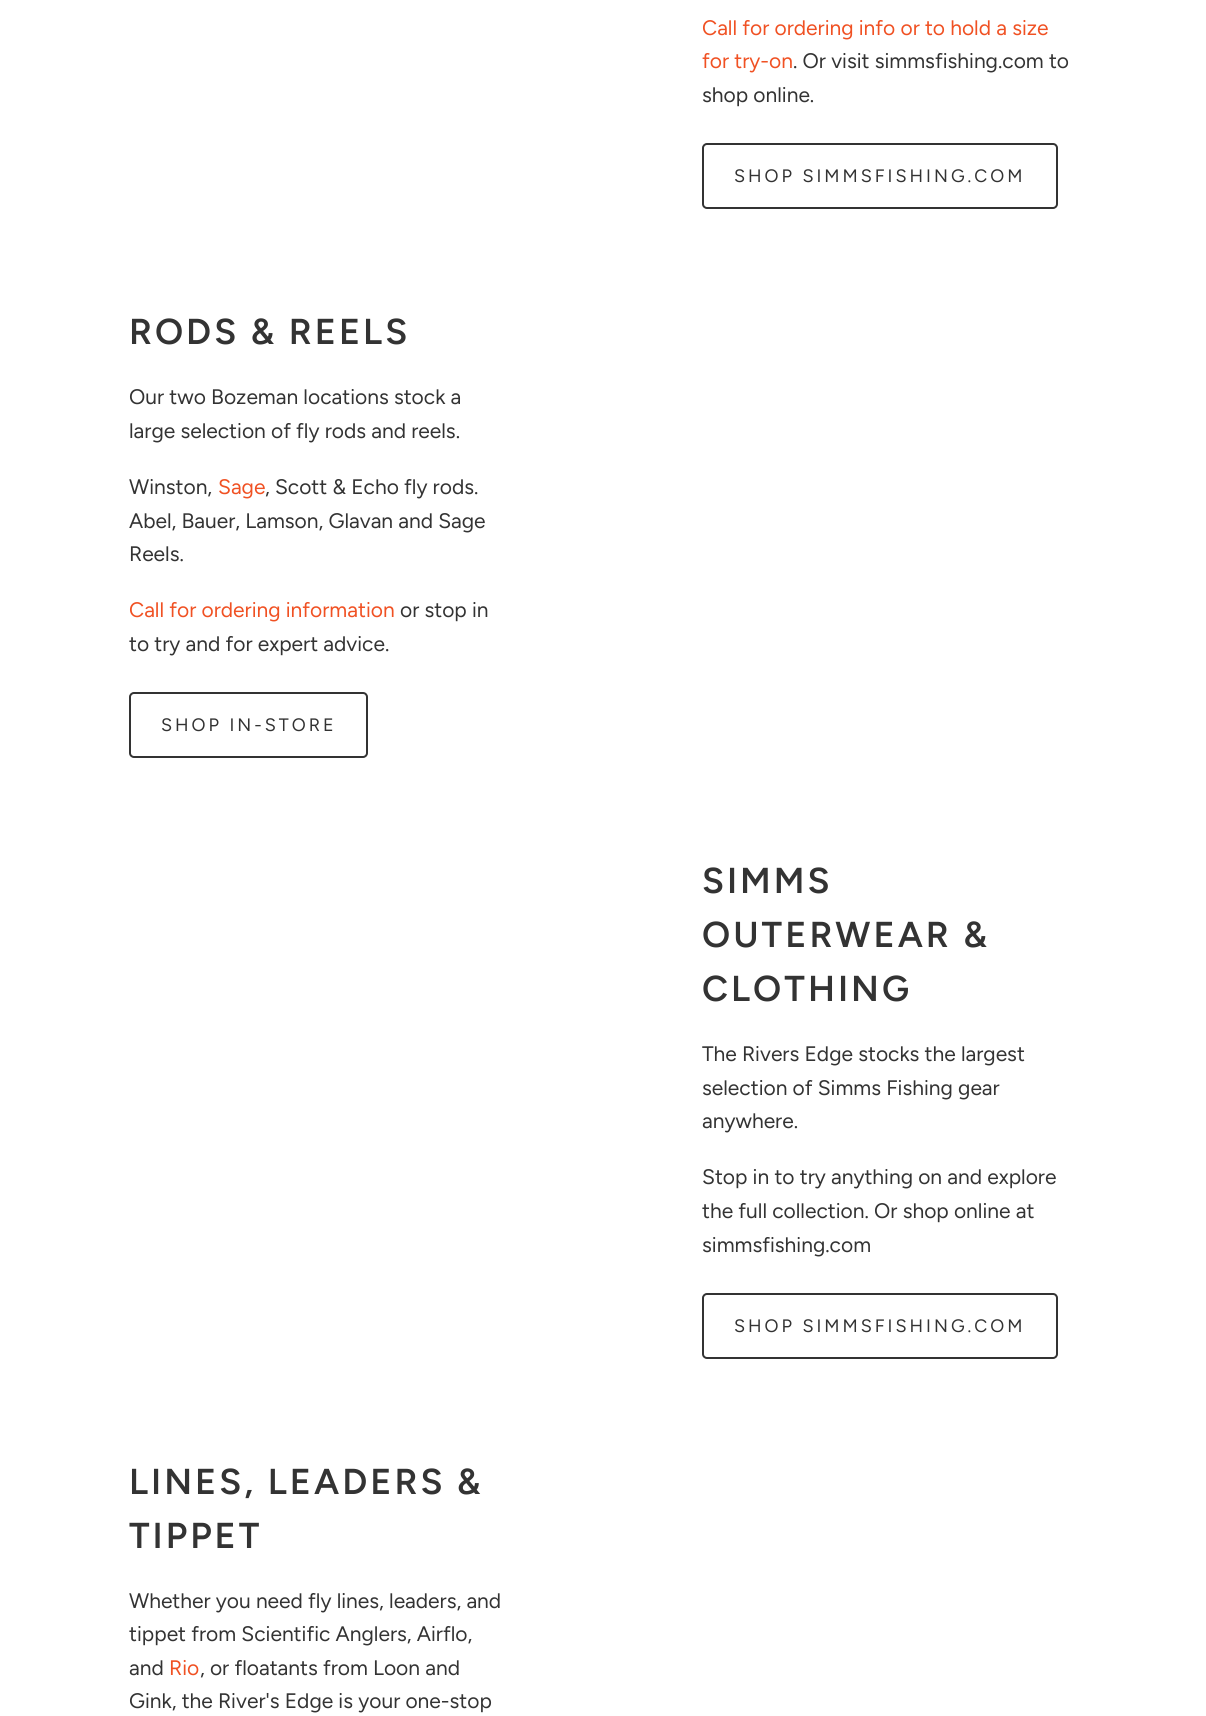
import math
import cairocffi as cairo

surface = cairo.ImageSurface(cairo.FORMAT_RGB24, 1206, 1716)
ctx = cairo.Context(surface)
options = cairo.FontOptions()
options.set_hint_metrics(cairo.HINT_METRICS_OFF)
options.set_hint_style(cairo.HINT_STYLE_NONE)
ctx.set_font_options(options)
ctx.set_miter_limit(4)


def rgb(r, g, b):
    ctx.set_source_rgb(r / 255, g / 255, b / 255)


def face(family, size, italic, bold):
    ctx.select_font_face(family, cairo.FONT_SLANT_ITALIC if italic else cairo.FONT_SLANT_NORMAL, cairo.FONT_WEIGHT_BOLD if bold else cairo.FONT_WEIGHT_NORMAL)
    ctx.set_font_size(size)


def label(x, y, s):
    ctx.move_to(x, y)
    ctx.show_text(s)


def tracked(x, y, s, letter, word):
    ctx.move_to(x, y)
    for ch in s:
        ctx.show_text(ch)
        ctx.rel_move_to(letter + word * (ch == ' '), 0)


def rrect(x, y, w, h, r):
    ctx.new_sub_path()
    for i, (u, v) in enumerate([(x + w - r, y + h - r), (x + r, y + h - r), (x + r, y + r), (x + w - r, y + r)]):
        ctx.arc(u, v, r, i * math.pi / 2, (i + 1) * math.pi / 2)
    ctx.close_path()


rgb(255, 255, 255)
ctx.paint()
face('Figtree', 21, 0, 0)
rgb(240, 81, 35)
label(702, 35, 'Call for ordering info or to hold a size')
label(702, 68, 'for try-on')
rgb(51, 51, 51)
label(793, 68, '. Or visit simmsfishing.com to')
label(702, 102, 'shop online.')
rrect(703, 144, 354, 64, 4)
ctx.stroke()
face('Figtree', 18, 0, 0)
tracked(734, 182, 'SHOP SIMMSFISHING.COM', 3, 0)
face('Figtree SemiBold', 36, 0, 0)
tracked(129, 344, 'RODS & REELS', 3, 0)
face('Figtree', 21, 0, 0)
label(129, 404, 'Our two Bozeman locations stock a')
label(129, 438, 'large selection of fly rods and reels.')
label(129, 494, 'Winston,')
rgb(240, 81, 35)
label(218, 494, 'Sage')
rgb(51, 51, 51)
label(265, 494, ', Scott & Echo fly rods.')
label(129, 528, 'Abel, Bauer, Lamson, Glavan and Sage')
label(129, 561, 'Reels.')
rgb(240, 81, 35)
label(129, 617, 'Call for ordering information')
rgb(51, 51, 51)
label(400, 617, 'or stop in')
label(129, 651, 'to try and for expert advice.')
rrect(130, 693, 237, 64, 4)
ctx.stroke()
face('Figtree', 18, 0, 0)
tracked(161, 731, 'SHOP IN-STORE', 3, 0)
face('Figtree SemiBold', 36, 0, 0)
tracked(702, 893, 'SIMMS', 3, 0)
tracked(702, 947, 'OUTERWEAR &', 3, 0)
tracked(702, 1001, 'CLOTHING', 3, 0)
face('Figtree', 21, 0, 0)
label(702, 1061, 'The Rivers Edge stocks the largest')
label(702, 1095, 'selection of Simms Fishing gear')
label(702, 1128, 'anywhere.')
label(702, 1184, 'Stop in to try anything on and explore')
label(702, 1218, 'the full collection. Or shop online at')
label(702, 1252, 'simmsfishing.com')
rrect(703, 1294, 354, 64, 4)
ctx.stroke()
face('Figtree', 18, 0, 0)
tracked(734, 1332, 'SHOP SIMMSFISHING.COM', 3, 0)
face('Figtree SemiBold', 36, 0, 0)
tracked(129, 1494, 'LINES, LEADERS &', 3, 0)
tracked(129, 1548, 'TIPPET', 3, 0)
face('Figtree', 21, 0, 0)
label(129, 1608, 'Whether you need fly lines, leaders, and')
label(129, 1641, 'tippet from Scientific Anglers, Airflo,')
label(129, 1675, 'and')
rgb(240, 81, 35)
label(169, 1675, 'Rio')
rgb(51, 51, 51)
label(200, 1675, ', or floatants from Loon and')
label(129, 1708, 'Gink, the River\'s Edge is your one-stop')
surface.write_to_png('render.png')
